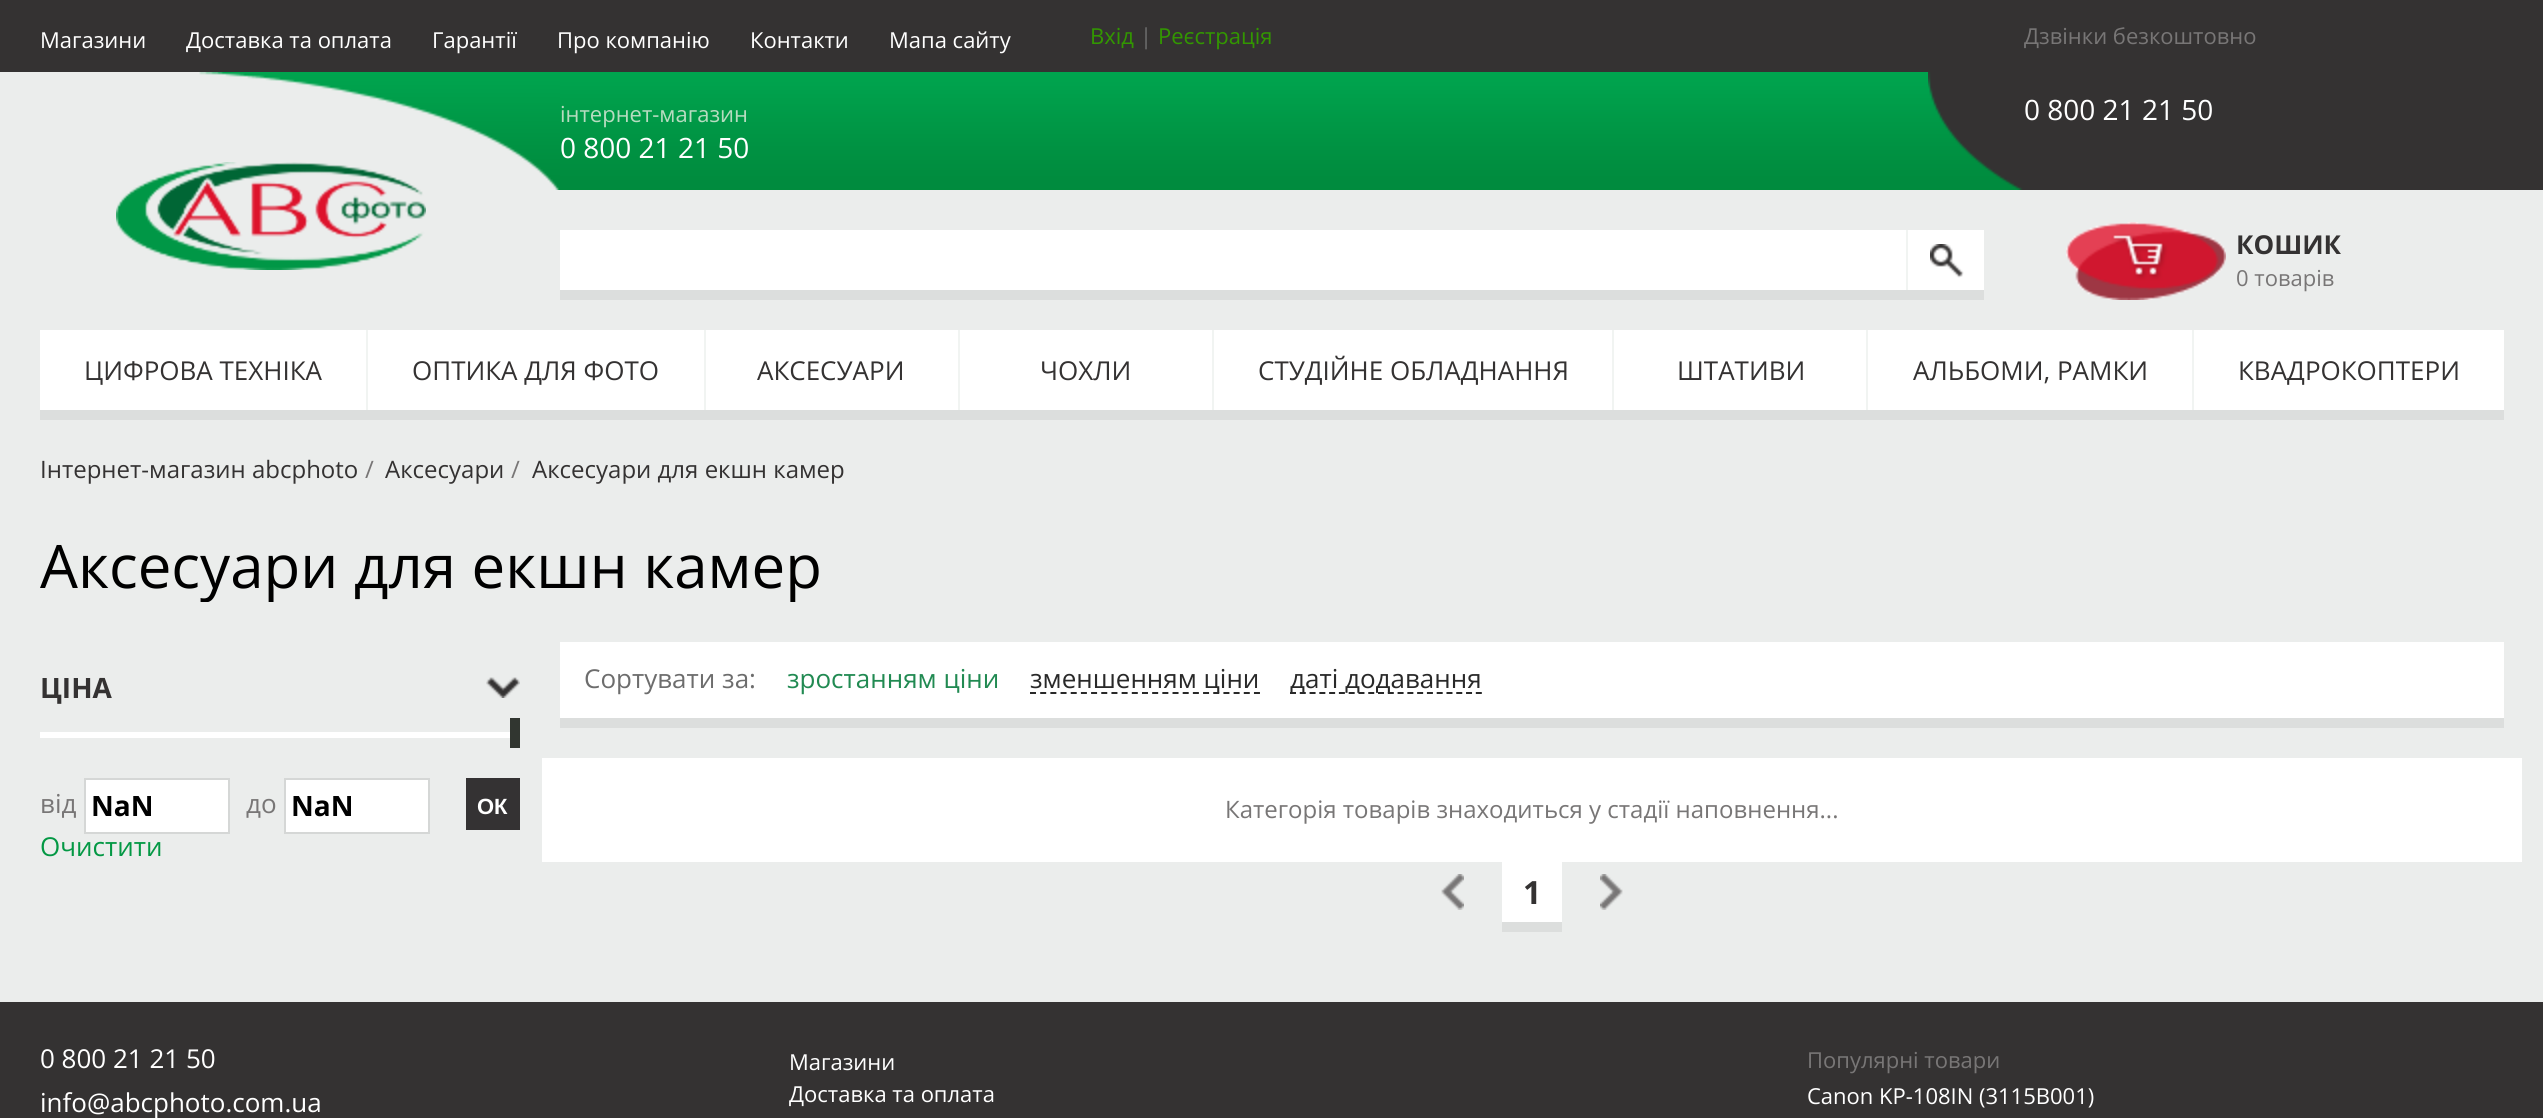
import math
import cairocffi as cairo

surface = cairo.ImageSurface(cairo.FORMAT_RGB24, 2543, 1118)
ctx = cairo.Context(surface)
options = cairo.FontOptions()
options.set_hint_metrics(cairo.HINT_METRICS_OFF)
options.set_hint_style(cairo.HINT_STYLE_NONE)
ctx.set_font_options(options)
ctx.set_miter_limit(4)


def rgb(r, g, b):
    ctx.set_source_rgb(r / 255, g / 255, b / 255)


def face(family, size, italic, bold):
    ctx.select_font_face(family, cairo.FONT_SLANT_ITALIC if italic else cairo.FONT_SLANT_NORMAL, cairo.FONT_WEIGHT_BOLD if bold else cairo.FONT_WEIGHT_NORMAL)
    ctx.set_font_size(size)


def label(x, y, s):
    ctx.move_to(x, y)
    ctx.show_text(s)


def rect(x, y, w, h):
    ctx.rectangle(x, y, w, h)
    ctx.fill()


def image(path, x, y, w, h):
    ctx.save()
    ctx.set_source_surface(cairo.ImageSurface.create_from_png(path), x, y)
    ctx.rectangle(x, y, w, h)
    ctx.fill()
    ctx.restore()


rgb(235, 237, 236)
ctx.paint()
rgb(52, 50, 50)
rect(0, 0, 2543, 72)
face('Open Sans', 22, 0, 0)
rgb(255, 255, 255)
label(40, 48, 'Магазини')
label(186, 48, 'Доставка та оплата')
label(432, 48, 'Гарантії')
label(557, 48, 'Про компанію')
label(750, 48, 'Контакти')
label(889, 48, 'Мапа сайту')
rgb(50, 151, 0)
label(1090, 44, 'Вхід')
rgb(109, 109, 109)
label(1140, 44, '|')
rgb(50, 151, 0)
label(1158, 44, 'Реєстрація')
image('image2.png', 560, 72, 1463, 118)
image('image0.png', 1928, 72, 96, 118)
rgb(120, 118, 118)
label(2024, 44, 'Дзвінки безкоштовно')
rgb(52, 50, 50)
rect(2024, 72, 519, 118)
face('Open Sans', 28, 0, 0)
rgb(255, 255, 255)
label(2024, 120, '0 800 21 21 50')
image('image1.png', 199, 72, 361, 118)
face('Open Sans', 22, 0, 0)
rgb(183, 220, 192)
label(560, 122, 'інтернет-магазин')
face('Open Sans', 28, 0, 0)
rgb(255, 255, 255)
label(560, 158, '0 800 21 21 50')
image('image3.png', 116, 162, 310, 108)
rgb(220, 222, 221)
rect(560, 290, 1424, 10)
rgb(255, 255, 255)
rect(560, 230, 1424, 60)
image('image4.png', 1930, 244, 34, 34)
rgb(241, 244, 242)
rect(1906, 230, 2, 60)
image('image5.png', 2066, 222, 160, 78)
face('Open Sans', 26, 0, 1)
rgb(52, 50, 50)
label(2236, 254, 'КОШИК')
face('Open Sans', 22, 0, 0)
rgb(120, 118, 118)
label(2236, 286, '0 товарів')
rgb(220, 222, 221)
rect(40, 410, 2464, 10)
rgb(255, 255, 255)
rect(40, 330, 326, 80)
face('Open Sans', 26, 0, 0)
rgb(52, 50, 50)
label(84, 380, 'ЦИФРОВА ТЕХНІКА')
rgb(241, 244, 242)
rect(366, 330, 2, 80)
rgb(255, 255, 255)
rect(368, 330, 336, 80)
rgb(52, 50, 50)
label(412, 380, 'ОПТИКА ДЛЯ ФОТО')
rgb(241, 244, 242)
rect(704, 330, 2, 80)
rgb(255, 255, 255)
rect(706, 330, 252, 80)
rgb(52, 50, 50)
label(757, 380, 'АКСЕСУАРИ')
rgb(241, 244, 242)
rect(958, 330, 2, 80)
rgb(255, 255, 255)
rect(960, 330, 252, 80)
rgb(52, 50, 50)
label(1040, 380, 'ЧОХЛИ')
rgb(241, 244, 242)
rect(1212, 330, 2, 80)
rgb(255, 255, 255)
rect(1214, 330, 398, 80)
rgb(52, 50, 50)
label(1258, 380, 'СТУДІЙНЕ ОБЛАДНАННЯ')
rgb(241, 244, 242)
rect(1612, 330, 2, 80)
rgb(255, 255, 255)
rect(1614, 330, 252, 80)
rgb(52, 50, 50)
label(1677, 380, 'ШТАТИВИ')
rgb(241, 244, 242)
rect(1866, 330, 2, 80)
rgb(255, 255, 255)
rect(1868, 330, 324, 80)
rgb(52, 50, 50)
label(1913, 380, 'АЛЬБОМИ, РАМКИ')
rgb(241, 244, 242)
rect(2192, 330, 2, 80)
rgb(255, 255, 255)
rect(2194, 330, 310, 80)
rgb(52, 50, 50)
label(2238, 380, 'КВАДРОКОПТЕРИ')
face('Open Sans', 24, 0, 0)
label(40, 478, 'Інтернет-магазин abcphoto')
rgb(120, 118, 118)
label(365, 478, '/')
rgb(52, 50, 50)
label(385, 478, 'Аксесуари')
rgb(120, 118, 118)
label(511, 478, '/')
rgb(52, 50, 50)
label(532, 478, 'Аксесуари для екшн камер')
ctx.save()
ctx.rectangle(40, 530, 2464, 72)
ctx.clip()
face('Open Sans', 60, 0, 0)
rgb(0, 0, 0)
label(40, 588, 'Аксесуари для екшн камер')
ctx.restore()
image('image6.png', 486, 677, 34, 21)
face('Open Sans', 28, 0, 1)
label(40, 698, 'ЦІНА')
rgb(255, 255, 255)
rect(40, 732, 470, 6)
rgb(49, 54, 48)
rect(510, 718, 10, 30)
face('Open Sans', 26, 0, 0)
rgb(120, 118, 118)
label(40, 813, 'від')
rgb(255, 255, 255)
ctx.rectangle(85, 779, 144, 54)
ctx.fill_preserve()
rgb(213, 215, 214)
ctx.stroke()
face('Open Sans', 28, 0, 1)
rgb(0, 0, 0)
label(91, 816, 'NaN')
face('Open Sans', 26, 0, 0)
rgb(120, 118, 118)
label(246, 813, 'до')
rgb(255, 255, 255)
ctx.rectangle(285, 779, 144, 54)
ctx.fill_preserve()
rgb(213, 215, 214)
ctx.stroke()
face('Open Sans', 28, 0, 1)
rgb(0, 0, 0)
label(291, 816, 'NaN')
rgb(52, 50, 51)
rect(466, 778, 54, 52)
face('Liberation Sans', 22, 0, 1)
rgb(255, 255, 255)
label(477, 814, 'ОК')
face('Open Sans', 26, 0, 0)
rgb(3, 152, 68)
label(40, 856, 'Очистити')
rgb(220, 222, 221)
rect(560, 718, 1944, 10)
rgb(255, 255, 255)
rect(560, 642, 1944, 76)
rgb(109, 109, 109)
label(584, 688, 'Сортувати за:')
rgb(33, 138, 82)
label(787, 688, 'зростанням ціни')
ctx.new_path()
ctx.move_to(1030, 693)
ctx.line_to(1260, 693)
rgb(41, 41, 41)
ctx.set_dash([6, 4.18])
ctx.stroke()
label(1030, 688, 'зменшенням ціни')
ctx.new_path()
ctx.move_to(1290, 693)
ctx.line_to(1482, 693)
ctx.set_dash([6, 3.78])
ctx.stroke()
label(1290, 688, 'даті додавання')
rgb(255, 255, 255)
rect(542, 758, 1980, 104)
face('Open Sans', 24, 0, 0)
rgb(120, 118, 118)
label(1225, 818, 'Категорія товарів знаходиться у стадії наповнення...')
image('image7.png', 1441, 874, 23, 36)
rgb(220, 222, 221)
rect(1502, 922, 60, 10)
rgb(255, 255, 255)
rect(1502, 862, 60, 60)
face('Open Sans', 32, 0, 1)
rgb(52, 50, 50)
label(1523, 904, '1')
image('image8.png', 1600, 874, 23, 36)
rect(0, 1002, 2543, 116)
face('Open Sans', 26, 0, 0)
rgb(255, 255, 255)
label(40, 1068, '0 800 21 21 50')
label(40, 1112, 'info@abcphoto.com.ua')
face('Open Sans', 22, 0, 0)
label(789, 1070, 'Магазини')
label(789, 1102, 'Доставка та оплата')
rgb(120, 118, 118)
label(1807, 1068, 'Популярні товари')
rgb(255, 255, 255)
label(1807, 1104, 'Canon KP-108IN (3115B001)')
surface.write_to_png('render.png')
